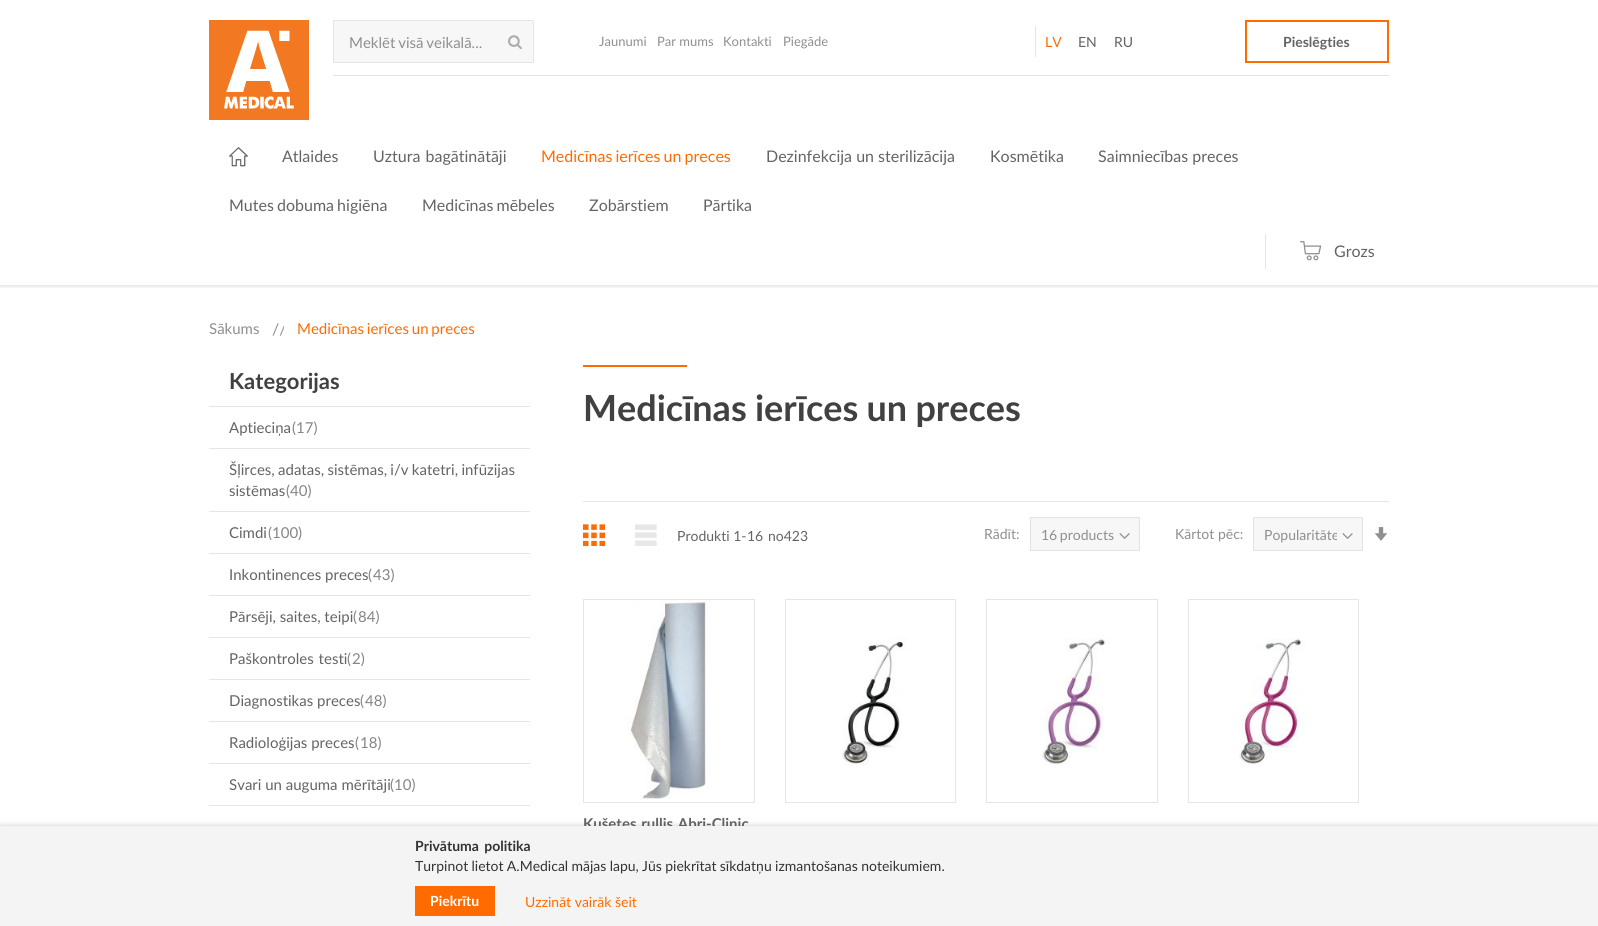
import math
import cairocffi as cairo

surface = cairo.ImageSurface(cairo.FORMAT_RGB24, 1598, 926)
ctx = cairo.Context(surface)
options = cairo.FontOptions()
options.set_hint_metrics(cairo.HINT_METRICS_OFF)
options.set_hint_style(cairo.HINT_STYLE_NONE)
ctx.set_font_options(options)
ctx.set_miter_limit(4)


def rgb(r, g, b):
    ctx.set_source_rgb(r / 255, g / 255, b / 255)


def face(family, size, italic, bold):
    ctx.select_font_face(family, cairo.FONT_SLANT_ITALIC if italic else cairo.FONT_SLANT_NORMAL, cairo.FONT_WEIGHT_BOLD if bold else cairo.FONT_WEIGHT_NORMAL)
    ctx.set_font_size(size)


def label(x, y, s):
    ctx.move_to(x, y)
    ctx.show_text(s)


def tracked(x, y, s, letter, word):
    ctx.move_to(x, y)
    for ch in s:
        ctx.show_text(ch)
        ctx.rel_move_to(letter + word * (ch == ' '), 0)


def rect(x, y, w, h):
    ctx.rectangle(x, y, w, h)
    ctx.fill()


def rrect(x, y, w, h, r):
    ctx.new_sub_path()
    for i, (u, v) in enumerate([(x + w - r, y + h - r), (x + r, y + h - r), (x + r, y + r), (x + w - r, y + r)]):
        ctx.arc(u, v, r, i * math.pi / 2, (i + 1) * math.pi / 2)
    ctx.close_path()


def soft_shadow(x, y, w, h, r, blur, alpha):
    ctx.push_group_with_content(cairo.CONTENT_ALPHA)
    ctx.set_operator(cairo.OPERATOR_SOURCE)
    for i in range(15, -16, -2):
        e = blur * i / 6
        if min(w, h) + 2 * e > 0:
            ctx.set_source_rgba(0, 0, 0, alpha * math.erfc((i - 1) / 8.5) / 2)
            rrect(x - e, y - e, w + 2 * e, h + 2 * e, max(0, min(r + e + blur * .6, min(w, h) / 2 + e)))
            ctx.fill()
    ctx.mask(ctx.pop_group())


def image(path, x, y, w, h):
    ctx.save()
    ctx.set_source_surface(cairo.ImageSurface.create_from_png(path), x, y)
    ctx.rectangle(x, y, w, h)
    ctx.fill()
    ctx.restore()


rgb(255, 255, 255)
ctx.paint()
ctx.save()
ctx.rectangle(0, 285, 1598, 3)
ctx.clip()
rgb(27, 47, 78)
soft_shadow(0, 1, 1598, 285, 0, 2.5, 0.1)
soft_shadow(0, 1, 1598, 285, 0, 2.5, 0.1)
ctx.restore()
image('image0.png', 209, 20, 100, 100)
rgb(247, 247, 247)
rrect(333.5, 20.5, 200, 42, 0.5)
ctx.fill_preserve()
rgb(229, 229, 229)
ctx.set_line_width(1)
ctx.stroke()
face('Lato', 15, 0, 0)
rgb(143, 143, 143)
tracked(349, 48, 'Meklēt visā veikalā...', 0, -1)
image('image1.png', 508, 35, 14, 15)
face('Lato', 13, 0, 0)
label(599, 46, 'Jaunumi')
label(657, 46, 'Par mums')
label(723, 46, 'Kontakti')
label(783, 46, 'Piegāde')
rgb(229, 229, 229)
rect(1035, 26, 1, 31)
face('Lato', 14, 0, 0)
rgb(255, 107, 1)
label(1045, 47, 'LV')
rgb(99, 100, 99)
label(1078, 47, 'EN')
label(1114, 47, 'RU')
ctx.rectangle(1246, 21, 142, 41)
rgb(255, 107, 1)
ctx.set_line_width(2)
ctx.stroke()
face('Lato', 14, 0, 1)
rgb(99, 100, 99)
label(1283, 47, 'Pieslēgties')
rgb(229, 229, 229)
rect(333, 75, 1056, 1)
image('image2.png', 229, 147, 19, 20)
face('Lato', 16, 0, 0)
rgb(99, 100, 99)
label(282, 162, 'Atlaides')
tracked(373, 162, 'Uztura bagātinātāji', 0, 1)
rgb(255, 107, 1)
tracked(541, 162, 'Medicīnas ierīces un preces', 0, -1)
rgb(99, 100, 99)
label(766, 162, 'Dezinfekcija un sterilizācija')
label(990, 162, 'Kosmētika')
label(1098, 162, 'Saimniecības preces')
tracked(229, 211, 'Mutes dobuma higiēna', 0, -1)
tracked(422, 211, 'Medicīnas mēbeles', 0, -1)
label(589, 211, 'Zobārstiem')
label(703, 211, 'Pārtika')
rgb(229, 229, 229)
rect(1265, 234, 1, 35)
image('image3.png', 1300, 241, 22, 20)
rgb(99, 100, 99)
label(1334, 257, 'Grozs')
face('Lato', 15, 0, 0)
rgb(143, 143, 143)
label(209, 334, 'Sākums')
ctx.save()
ctx.rectangle(272, 318, 12, 21)
ctx.clip()
face('Lato', 16, 0, 0)
label(272, 335, '//')
ctx.restore()
rgb(255, 107, 1)
tracked(297, 334, 'Medicīnas ierīces un preces', 0, -1)
rgb(229, 229, 229)
rect(209, 406, 321, 1)
face('Lato', 22, 0, 1)
rgb(65, 65, 65)
label(229, 389, 'Kategorijas')
rgb(229, 229, 229)
rect(209, 448, 321, 1)
face('Lato', 15, 0, 0)
rgb(99, 100, 99)
label(229, 433, 'Aptieciņa')
rgb(133, 133, 133)
label(292, 433, '(')
label(296, 433, '17)')
rgb(229, 229, 229)
rect(209, 511, 321, 1)
rgb(99, 100, 99)
tracked(229, 475, 'Šļirces, adatas, sistēmas, i/v katetri, infūzijas', 0, -0.5)
label(229, 496, 'sistēmas')
rgb(133, 133, 133)
label(286, 496, '(')
label(290, 496, '40)')
rgb(229, 229, 229)
rect(209, 553, 321, 1)
rgb(99, 100, 99)
label(229, 538, 'Cimdi')
rgb(133, 133, 133)
label(268, 538, '(')
label(272, 538, '100)')
rgb(229, 229, 229)
rect(209, 595, 321, 1)
rgb(99, 100, 99)
label(229, 580, 'Inkontinences preces')
rgb(133, 133, 133)
label(368, 580, '(')
label(373, 580, '43)')
rgb(229, 229, 229)
rect(209, 637, 321, 1)
rgb(99, 100, 99)
label(229, 622, 'Pārsēji, saites, teipi')
rgb(133, 133, 133)
label(353, 622, '(')
label(358, 622, '84)')
rgb(229, 229, 229)
rect(209, 679, 321, 1)
rgb(99, 100, 99)
tracked(229, 664, 'Paškontroles testi', 0, 1)
rgb(133, 133, 133)
label(347, 664, '(')
label(352, 664, '2)')
rgb(229, 229, 229)
rect(209, 721, 321, 1)
rgb(99, 100, 99)
label(229, 706, 'Diagnostikas preces')
rgb(133, 133, 133)
label(360, 706, '(')
label(365, 706, '48)')
rgb(229, 229, 229)
rect(209, 763, 321, 1)
rgb(99, 100, 99)
label(229, 748, 'Radioloģijas preces')
rgb(133, 133, 133)
label(355, 748, '(')
label(360, 748, '18)')
rgb(229, 229, 229)
rect(209, 805, 321, 1)
rgb(99, 100, 99)
label(229, 790, 'Svari un auguma mērītāji')
rgb(133, 133, 133)
label(390, 790, '(')
label(394, 790, '10)')
rgb(255, 107, 1)
rect(583, 365, 104, 2)
face('Lato', 36, 0, 1)
rgb(65, 65, 65)
tracked(583, 421, 'Medicīnas ierīces un preces', 0, -0.5)
rgb(229, 229, 229)
rect(583, 501, 806, 1)
image('image4.png', 583, 524, 22, 22)
image('image5.png', 635, 524, 22, 22)
face('Lato', 14, 0, 0)
rgb(99, 100, 99)
label(677, 541, 'Produkti 1-')
label(747, 541, '16')
label(768, 541, 'no423')
rgb(143, 143, 143)
label(984, 539, 'Rādīt:')
rgb(247, 247, 247)
rect(1031, 518, 108, 32)
image('image6.png', 1119, 533, 11, 6)
ctx.rectangle(1030.5, 517.5, 109, 33)
rgb(227, 227, 227)
ctx.set_line_width(1)
ctx.stroke()
rgb(143, 143, 143)
tracked(1041, 540, '16 products', 0, -1)
label(1175, 539, 'Kārtot pēc:')
rgb(247, 247, 247)
rect(1254, 518, 108, 32)
image('image6.png', 1342, 533, 11, 6)
ctx.rectangle(1253.5, 517.5, 109, 33)
rgb(227, 227, 227)
ctx.stroke()
ctx.save()
ctx.rectangle(1264, 525, 73, 20)
ctx.clip()
rgb(143, 143, 143)
label(1264, 540, 'Popularitāte')
ctx.restore()
image('image7.png', 1374, 527, 14, 14)
ctx.rectangle(785.5, 599.5, 170, 203)
rgb(229, 229, 229)
ctx.stroke()
image('image8.png', 842, 638, 65, 127)
ctx.rectangle(986.5, 599.5, 171, 203)
ctx.stroke()
image('image9.png', 1041, 638, 69, 127)
ctx.rectangle(1188.5, 599.5, 170, 203)
ctx.stroke()
image('image10.png', 1239, 638, 66, 127)
ctx.rectangle(583.5, 599.5, 171, 203)
ctx.stroke()
image('image11.png', 627, 600, 83, 199)
face('Lato', 15, 0, 1)
rgb(99, 100, 99)
tracked(583, 829, 'Kušetes rullis Abri-Clinic', 0, 1)
rgb(27, 47, 78)
soft_shadow(0, 825, 1598, 100, 0, 2.5, 0.1)
soft_shadow(0, 825, 1598, 100, 0, 2.5, 0.1)
rgb(244, 244, 244)
rect(0, 826, 1598, 100)
face('Lato', 14, 0, 1)
rgb(51, 51, 51)
tracked(415, 851, 'Privātuma politika', 0, 2)
face('Lato', 14, 0, 0)
tracked(415, 871, 'Turpinot lietot A.Medical mājas lapu, Jūs piekrītat sīkdatņu izmantošanas noteikumiem.', 0, -0.25)
rgb(255, 107, 1)
rect(415, 886, 80, 30)
face('Lato', 14, 0, 1)
rgb(255, 255, 255)
label(430, 906, 'Piekrītu')
face('Lato', 14, 0, 0)
rgb(255, 107, 1)
label(525, 907, 'Uzzināt vairāk šeit')
surface.write_to_png('render.png')
